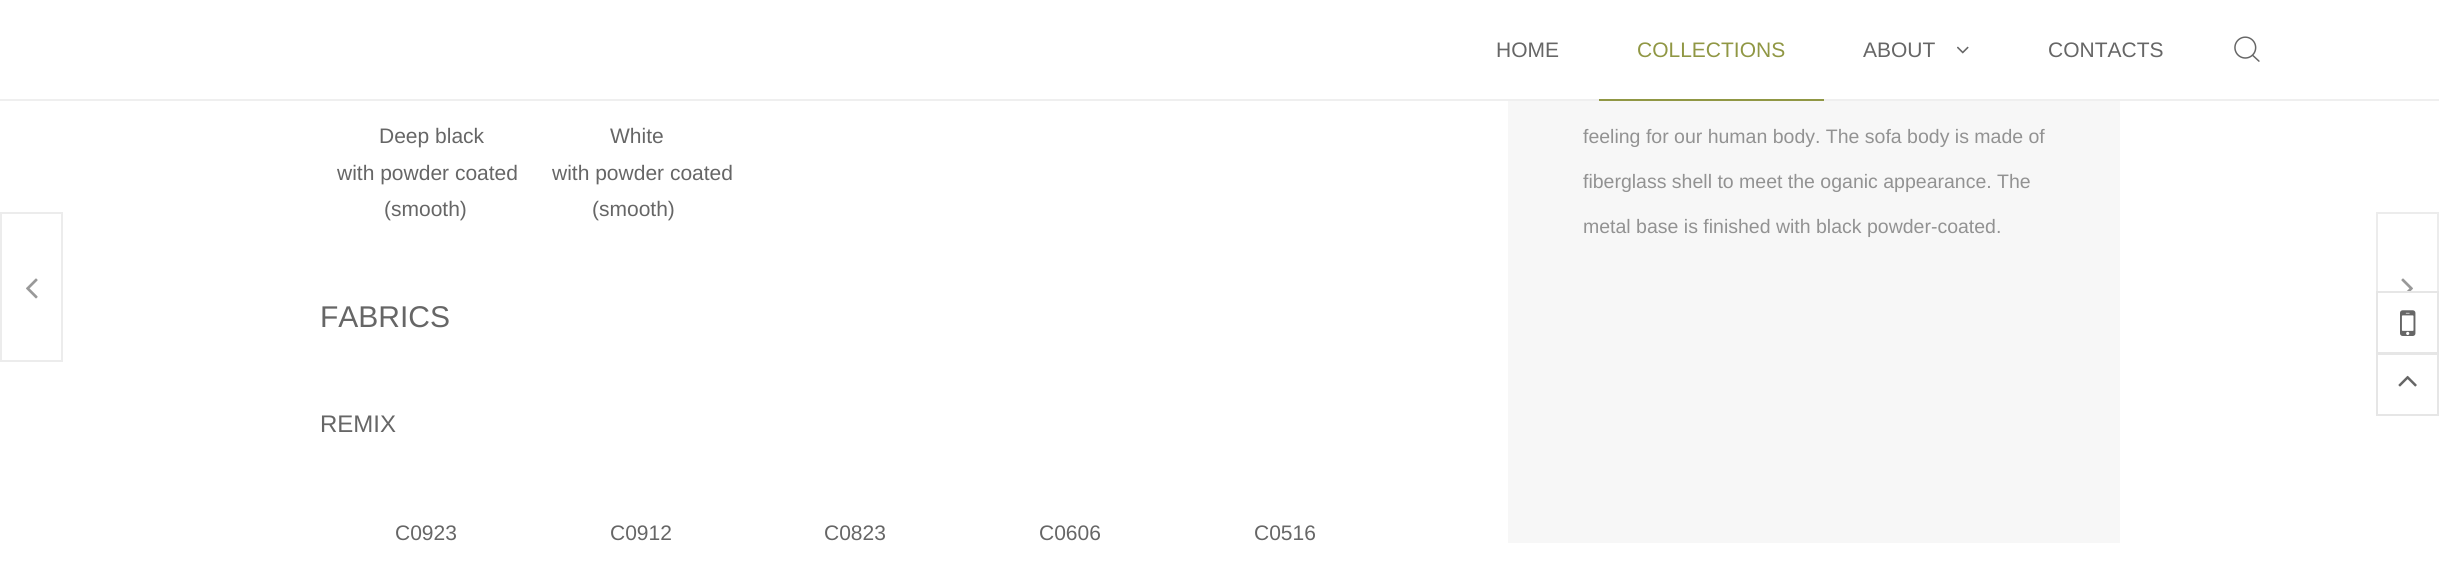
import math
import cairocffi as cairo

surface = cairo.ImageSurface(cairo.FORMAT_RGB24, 2439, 573)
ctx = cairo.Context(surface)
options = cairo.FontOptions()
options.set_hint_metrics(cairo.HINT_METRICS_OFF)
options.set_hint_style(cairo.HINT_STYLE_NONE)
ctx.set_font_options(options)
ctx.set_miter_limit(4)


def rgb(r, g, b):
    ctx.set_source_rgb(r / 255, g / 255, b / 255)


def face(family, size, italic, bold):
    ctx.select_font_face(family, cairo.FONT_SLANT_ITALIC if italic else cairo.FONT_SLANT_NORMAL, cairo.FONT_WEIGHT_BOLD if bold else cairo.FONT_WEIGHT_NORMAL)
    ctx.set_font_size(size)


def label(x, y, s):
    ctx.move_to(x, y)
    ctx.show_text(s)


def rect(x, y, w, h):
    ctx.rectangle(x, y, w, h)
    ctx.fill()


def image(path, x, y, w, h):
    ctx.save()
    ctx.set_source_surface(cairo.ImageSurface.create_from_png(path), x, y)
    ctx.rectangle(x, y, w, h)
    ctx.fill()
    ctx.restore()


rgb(255, 255, 255)
ctx.paint()
rgb(239, 239, 239)
rect(0, 99, 2439, 2)
face('Liberation Sans', 21, 0, 0)
rgb(102, 102, 102)
label(1496, 57, 'HOME')
rgb(144, 151, 68)
rect(1599, 99, 225, 2)
label(1637, 57, 'COLLECTIONS')
rgb(102, 102, 102)
label(1863, 57, 'ABOUT')
image('image0.png', 1957, 46, 12, 8)
label(2048, 57, 'CONTACTS')
image('image1.png', 2234, 36, 26, 26)
label(379, 143, 'Deep black')
label(337, 180, 'with powder coated')
label(384, 216, '(smooth)')
label(610, 143, 'White')
label(552, 180, 'with powder coated')
label(592, 216, '(smooth)')
face('Liberation Sans', 30, 0, 0)
label(320, 327, 'FABRICS')
face('Liberation Sans', 24, 0, 0)
label(320, 432, 'REMIX')
face('Liberation Sans', 21, 0, 0)
label(395, 540, 'C0923')
label(610, 540, 'C0912')
label(824, 540, 'C0823')
label(1039, 540, 'C0606')
label(1254, 540, 'C0516')
rgb(247, 247, 247)
rect(1508, 101, 612, 442)
face('Liberation Sans', 19.5, 0, 0)
rgb(146, 146, 146)
label(1583, 143, 'feeling for our human body. The sofa body is made of')
label(1583, 188, 'fiberglass shell to meet the oganic appearance. The')
label(1583, 233, 'metal base is finished with black powder-coated.')
ctx.rectangle(1, 213, 61, 148)
rgb(236, 236, 236)
ctx.stroke()
image('image2.png', 26, 278, 12, 21)
ctx.rectangle(2377, 213, 61, 148)
ctx.stroke()
image('image3.png', 2401, 278, 12, 13)
ctx.rectangle(2377, 292, 61, 61)
rgb(230, 230, 230)
ctx.stroke()
image('image4.png', 2400, 310, 16, 26)
rgb(255, 255, 255)
rect(2378, 360, 59, 2)
ctx.rectangle(2377, 354, 61, 61)
rgb(230, 230, 230)
ctx.stroke()
image('image5.png', 2398, 375, 19, 12)
surface.write_to_png('render.png')
